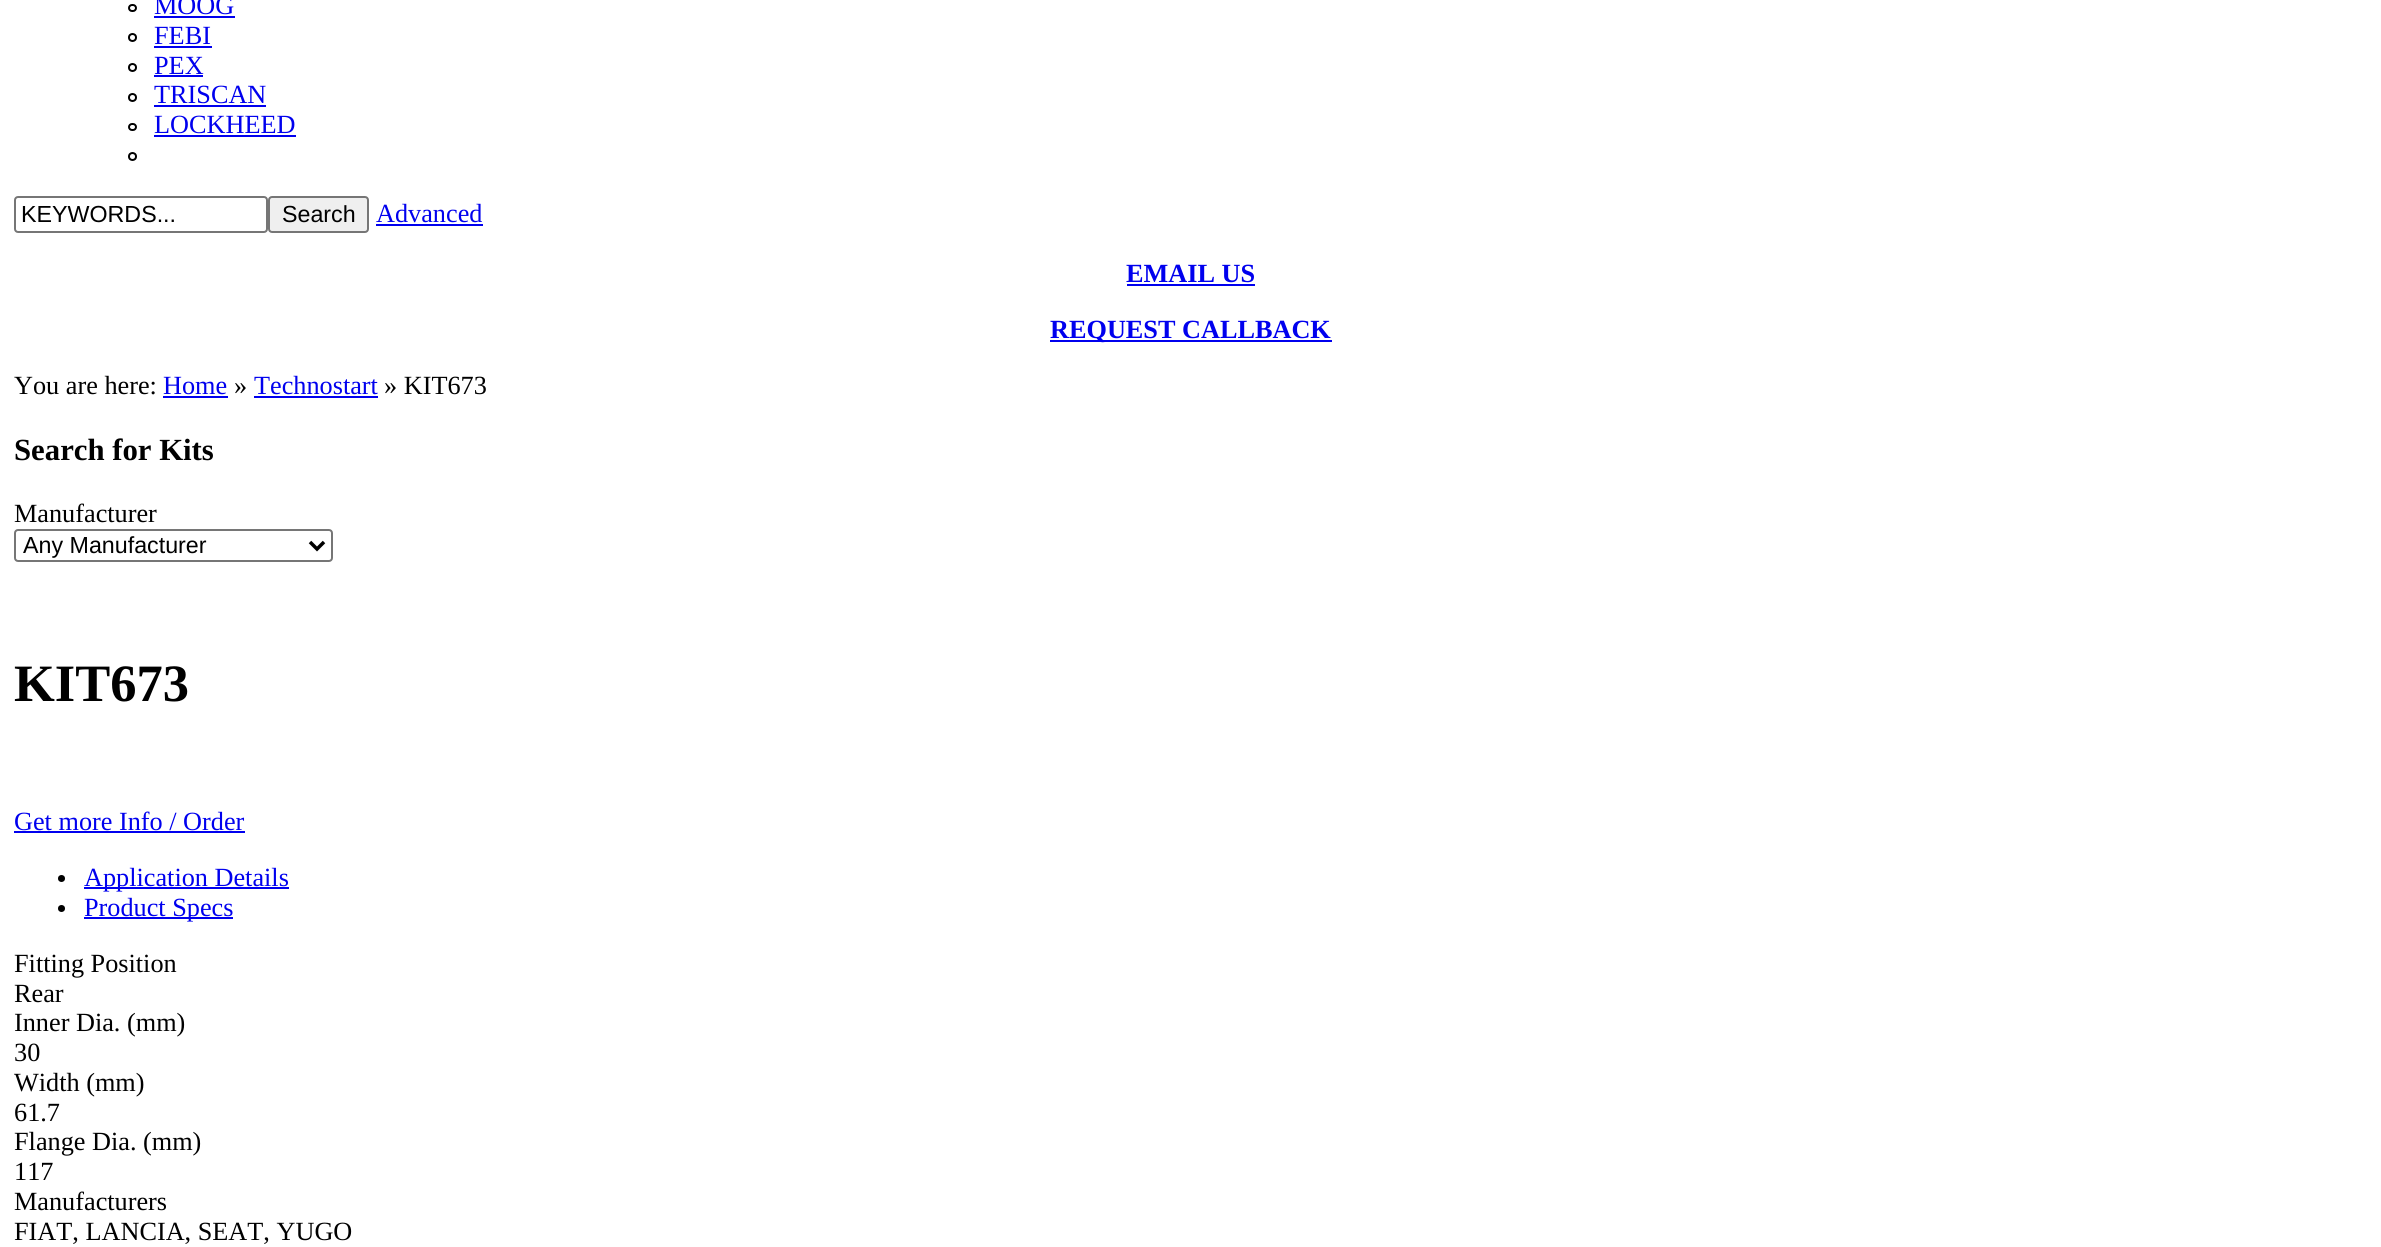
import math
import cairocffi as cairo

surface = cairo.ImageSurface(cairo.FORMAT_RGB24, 2381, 1247)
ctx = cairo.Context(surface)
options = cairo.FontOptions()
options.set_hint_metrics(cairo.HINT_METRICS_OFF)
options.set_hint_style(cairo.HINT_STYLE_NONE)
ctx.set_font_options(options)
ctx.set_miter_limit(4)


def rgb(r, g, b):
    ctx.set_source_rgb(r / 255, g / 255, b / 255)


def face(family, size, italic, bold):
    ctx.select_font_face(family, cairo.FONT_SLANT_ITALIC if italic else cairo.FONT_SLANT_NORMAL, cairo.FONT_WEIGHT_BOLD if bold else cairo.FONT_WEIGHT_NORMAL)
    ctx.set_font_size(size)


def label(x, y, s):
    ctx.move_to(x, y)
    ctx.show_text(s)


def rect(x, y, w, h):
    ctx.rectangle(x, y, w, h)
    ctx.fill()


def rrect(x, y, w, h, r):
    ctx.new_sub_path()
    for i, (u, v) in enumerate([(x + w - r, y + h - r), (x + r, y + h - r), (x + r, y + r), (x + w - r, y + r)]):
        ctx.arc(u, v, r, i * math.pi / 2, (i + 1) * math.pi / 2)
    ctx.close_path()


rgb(255, 255, 255)
ctx.paint()
rrect(129, 5, 7, 6, 3)
rgb(0, 0, 0)
ctx.stroke()
face('Liberation Serif', 26.25, 0, 0)
rgb(0, 0, 238)
label(154, 14, 'MOOG')
rect(154, 16, 81, 2)
ctx.new_path()
ctx.arc(132.5, 37.5, 3.5, 0, 2 * math.pi)
rgb(0, 0, 0)
ctx.stroke()
rgb(0, 0, 238)
label(154, 44, 'FEBI')
rect(154, 46, 58, 2)
ctx.new_path()
ctx.arc(132.5, 67.5, 3.5, 0, 2 * math.pi)
rgb(0, 0, 0)
ctx.stroke()
rgb(0, 0, 238)
label(154, 74, 'PEX')
rect(154, 75, 49, 2)
ctx.new_path()
ctx.arc(132.5, 97.5, 3.5, 0, 2 * math.pi)
rgb(0, 0, 0)
ctx.stroke()
rgb(0, 0, 238)
label(154, 103, 'TRISCAN')
rect(154, 105, 112, 2)
rrect(129, 124, 7, 6, 3)
rgb(0, 0, 0)
ctx.stroke()
rgb(0, 0, 238)
label(154, 133, 'LOCKHEED')
rect(154, 135, 142, 2)
ctx.new_path()
ctx.arc(132.5, 156.5, 3.5, 0, 2 * math.pi)
rgb(0, 0, 0)
ctx.stroke()
rrect(15, 197, 252, 35, 3)
rgb(118, 118, 118)
ctx.stroke()
face('Liberation Sans', 23.25, 0, 0)
rgb(0, 0, 0)
label(21, 222, 'KEYWORDS...')
rgb(239, 239, 239)
rrect(269, 197, 99, 35, 3)
ctx.fill_preserve()
rgb(118, 118, 118)
ctx.stroke()
rgb(0, 0, 0)
label(282, 222, 'Search')
face('Liberation Serif', 26.25, 0, 0)
rgb(0, 0, 238)
label(376, 222, 'Advanced')
rect(376, 224, 107, 2)
face('Liberation Serif', 26.25, 0, 1)
label(1126, 282, 'EMAIL US')
rect(1127, 284, 128, 2)
rect(1050, 340, 282, 2)
label(1050, 338, 'REQUEST CALLBACK')
face('Liberation Serif', 26.25, 0, 0)
rgb(0, 0, 0)
label(14, 394, 'You are here:')
rgb(0, 0, 238)
label(163, 394, 'Home')
rect(163, 396, 65, 2)
rgb(0, 0, 0)
label(234, 394, '»')
rgb(0, 0, 238)
label(254, 394, 'Technostart')
rect(254, 396, 124, 2)
rgb(0, 0, 0)
label(384, 394, '» KIT673')
face('Liberation Serif', 30.75, 0, 1)
label(14, 460, 'Search for Kits')
face('Liberation Serif', 26.25, 0, 0)
label(14, 522, 'Manufacturer')
rrect(15, 530, 317, 31, 3)
rgb(118, 118, 118)
ctx.stroke()
ctx.new_path()
ctx.move_to(310, 542)
ctx.line_to(317, 549)
ctx.line_to(324, 542)
rgb(0, 0, 0)
ctx.set_line_width(3.5)
ctx.stroke()
face('Liberation Sans', 23.25, 0, 0)
label(23, 553, 'Any Manufacturer')
face('Liberation Serif', 52.5, 0, 1)
label(14, 701, 'KIT673')
face('Liberation Serif', 26.25, 0, 0)
rgb(0, 0, 238)
label(14, 830, 'Get more Info / Order')
rect(14, 831, 231, 2)
rgb(0, 0, 0)
ctx.new_path()
ctx.arc(61.5, 878.5, 3.5, 0, 2 * math.pi)
ctx.fill()
rgb(0, 0, 238)
rect(84, 887, 205, 2)
label(84, 886, 'Application Details')
rgb(0, 0, 0)
ctx.new_path()
ctx.arc(61.5, 908.5, 3.5, 0, 2 * math.pi)
ctx.fill()
rgb(0, 0, 238)
rect(84, 917, 149, 2)
label(84, 916, 'Product Specs')
rgb(0, 0, 0)
label(14, 972, 'Fitting Position')
label(14, 1002, 'Rear')
label(14, 1031, 'Inner Dia. (mm)')
label(14, 1061, '30')
label(14, 1091, 'Width (mm)')
label(14, 1121, '61.7')
label(14, 1150, 'Flange Dia. (mm)')
label(14, 1180, '117')
label(14, 1210, 'Manufacturers')
label(14, 1240, 'FIAT, LANCIA, SEAT, YUGO')
surface.write_to_png('render.png')
